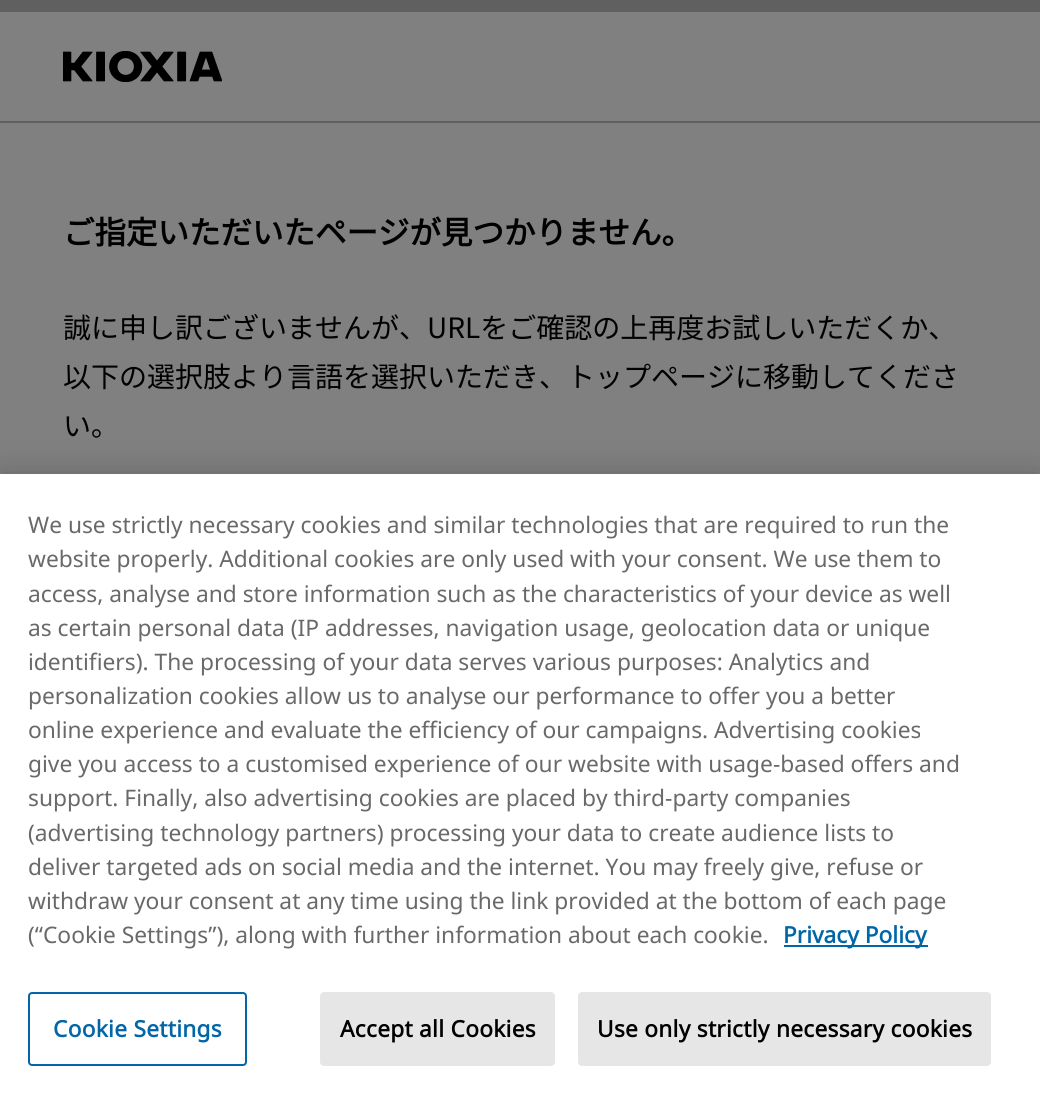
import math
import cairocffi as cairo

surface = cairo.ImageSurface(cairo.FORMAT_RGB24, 1040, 1102)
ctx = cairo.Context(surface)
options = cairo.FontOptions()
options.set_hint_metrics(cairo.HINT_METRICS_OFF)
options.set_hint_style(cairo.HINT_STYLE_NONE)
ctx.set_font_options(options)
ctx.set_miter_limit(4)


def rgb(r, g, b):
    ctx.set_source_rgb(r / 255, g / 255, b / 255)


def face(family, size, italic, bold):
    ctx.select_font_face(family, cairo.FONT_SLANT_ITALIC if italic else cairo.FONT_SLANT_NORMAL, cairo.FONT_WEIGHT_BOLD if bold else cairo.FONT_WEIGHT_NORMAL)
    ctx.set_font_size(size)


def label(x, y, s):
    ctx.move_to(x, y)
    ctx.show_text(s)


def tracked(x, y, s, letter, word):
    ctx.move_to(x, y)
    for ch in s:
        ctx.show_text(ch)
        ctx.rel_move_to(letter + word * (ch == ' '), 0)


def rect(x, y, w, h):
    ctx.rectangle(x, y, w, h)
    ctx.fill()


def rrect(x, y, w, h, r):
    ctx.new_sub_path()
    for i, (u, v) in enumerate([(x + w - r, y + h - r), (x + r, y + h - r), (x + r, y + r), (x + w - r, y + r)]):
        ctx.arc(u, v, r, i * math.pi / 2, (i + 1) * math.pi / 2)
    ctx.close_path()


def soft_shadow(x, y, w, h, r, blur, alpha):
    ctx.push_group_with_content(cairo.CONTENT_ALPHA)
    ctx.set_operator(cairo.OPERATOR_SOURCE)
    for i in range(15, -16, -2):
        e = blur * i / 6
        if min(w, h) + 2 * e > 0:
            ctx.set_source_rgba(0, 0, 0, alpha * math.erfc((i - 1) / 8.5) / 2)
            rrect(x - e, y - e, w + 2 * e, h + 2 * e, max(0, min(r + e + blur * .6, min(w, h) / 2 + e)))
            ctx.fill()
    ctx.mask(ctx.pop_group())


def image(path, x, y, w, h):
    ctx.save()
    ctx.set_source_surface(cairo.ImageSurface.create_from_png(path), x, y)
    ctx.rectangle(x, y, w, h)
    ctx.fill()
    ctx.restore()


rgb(128, 128, 128)
ctx.paint()
rgb(96, 96, 96)
rect(0, 0, 1040, 12)
rect(0, 121, 1040, 2)
image('image0.png', 63, 51, 159, 31)
face('Noto Sans JP', 31.5, 0, 1)
rgb(0, 0, 0)
label(63, 244, 'ご指定いただいたページが見つかりません。')
face('Noto Sans JP Thin', 28, 0, 0)
label(63, 338, '誠に申し訳ございませんが、URLをご確認の上再度お試しいただくか、')
label(63, 387, '以下の選択肢より言語を選択いただき、トップページに移動してくださ')
label(63, 436, 'い。')
rgb(0, 0, 0)
soft_shadow(0, 474, 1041, 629, 0, 16, 0.2)
rgb(255, 255, 255)
rect(0, 474, 1040, 628)
face('Noto Sans', 22.75, 0, 0)
rgb(105, 105, 105)
label(28, 533, 'We use strictly necessary cookies and similar technologies that are required to run the')
label(28, 567, 'website properly. Additional cookies are only used with your consent. We use them to')
label(28, 602, 'access, analyse and store information such as the characteristics of your device as well')
label(28, 636, 'as certain personal data (IP addresses, navigation usage, geolocation data or unique')
label(28, 670, 'identifiers). The processing of your data serves various purposes: Analytics and')
label(28, 704, 'personalization cookies allow us to analyse our performance to offer you a better')
label(28, 738, 'online experience and evaluate the efficiency of our campaigns. Advertising cookies')
label(28, 772, 'give you access to a customised experience of our website with usage-based offers and')
label(28, 806, 'support. Finally, also advertising cookies are placed by third-party companies')
label(28, 841, '(advertising technology partners) processing your data to create audience lists to')
label(28, 875, 'deliver targeted ads on social media and the internet. You may freely give, refuse or')
label(28, 909, 'withdraw your consent at any time using the link provided at the bottom of each page')
label(28, 943, '(“Cookie Settings”), along with further information about each cookie.')
rgb(0, 102, 167)
rect(784, 945, 144, 2)
face('Noto Sans', 22.75, 0, 1)
label(783, 943, 'Privacy Policy')
rrect(29, 993, 217, 72, 3)
ctx.stroke()
tracked(53, 1037, 'Cookie Settings', 0.25, 0)
rgb(230, 230, 230)
rrect(321, 993, 233, 72, 3)
ctx.fill_preserve()
ctx.stroke()
rgb(0, 0, 0)
tracked(340, 1037, 'Accept all Cookies', 0.25, 0)
rgb(230, 230, 230)
rrect(579, 993, 411, 72, 3)
ctx.fill_preserve()
ctx.stroke()
rgb(0, 0, 0)
tracked(597, 1037, 'Use only strictly necessary cookies', 0.25, 0)
surface.write_to_png('render.png')
